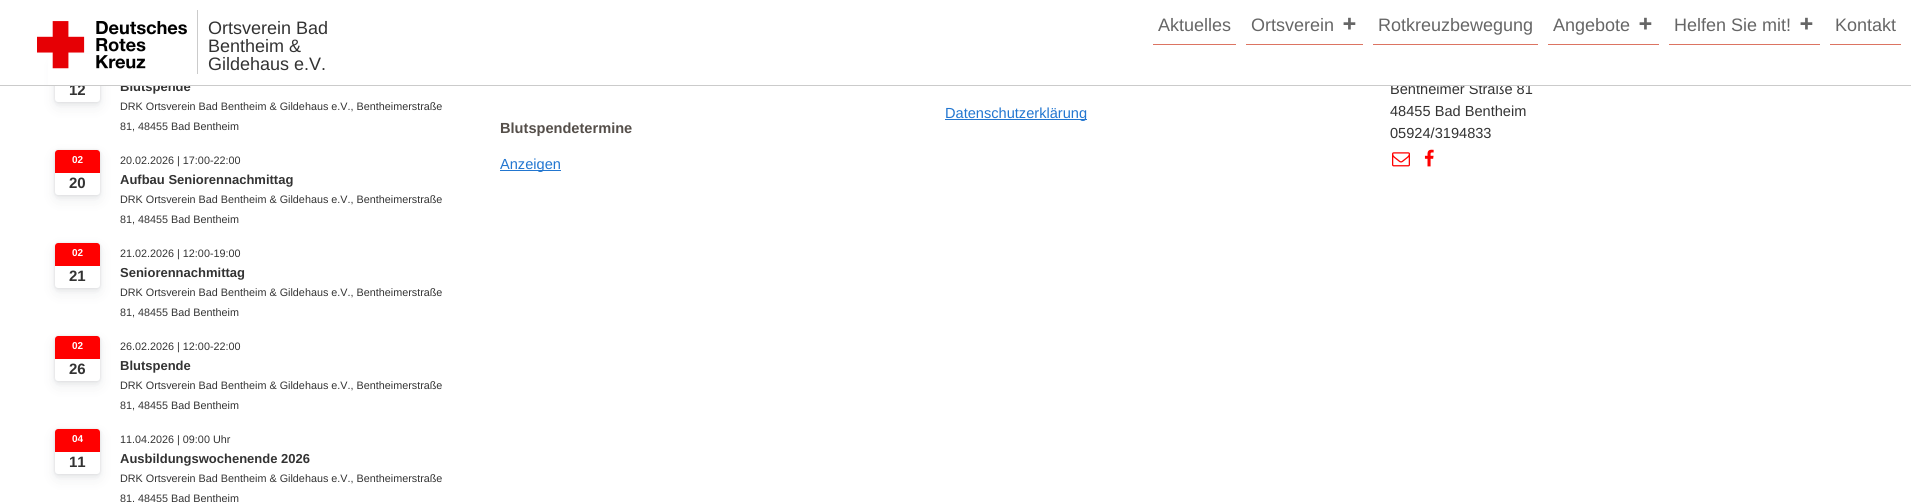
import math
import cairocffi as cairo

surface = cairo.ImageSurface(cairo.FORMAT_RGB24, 1911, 502)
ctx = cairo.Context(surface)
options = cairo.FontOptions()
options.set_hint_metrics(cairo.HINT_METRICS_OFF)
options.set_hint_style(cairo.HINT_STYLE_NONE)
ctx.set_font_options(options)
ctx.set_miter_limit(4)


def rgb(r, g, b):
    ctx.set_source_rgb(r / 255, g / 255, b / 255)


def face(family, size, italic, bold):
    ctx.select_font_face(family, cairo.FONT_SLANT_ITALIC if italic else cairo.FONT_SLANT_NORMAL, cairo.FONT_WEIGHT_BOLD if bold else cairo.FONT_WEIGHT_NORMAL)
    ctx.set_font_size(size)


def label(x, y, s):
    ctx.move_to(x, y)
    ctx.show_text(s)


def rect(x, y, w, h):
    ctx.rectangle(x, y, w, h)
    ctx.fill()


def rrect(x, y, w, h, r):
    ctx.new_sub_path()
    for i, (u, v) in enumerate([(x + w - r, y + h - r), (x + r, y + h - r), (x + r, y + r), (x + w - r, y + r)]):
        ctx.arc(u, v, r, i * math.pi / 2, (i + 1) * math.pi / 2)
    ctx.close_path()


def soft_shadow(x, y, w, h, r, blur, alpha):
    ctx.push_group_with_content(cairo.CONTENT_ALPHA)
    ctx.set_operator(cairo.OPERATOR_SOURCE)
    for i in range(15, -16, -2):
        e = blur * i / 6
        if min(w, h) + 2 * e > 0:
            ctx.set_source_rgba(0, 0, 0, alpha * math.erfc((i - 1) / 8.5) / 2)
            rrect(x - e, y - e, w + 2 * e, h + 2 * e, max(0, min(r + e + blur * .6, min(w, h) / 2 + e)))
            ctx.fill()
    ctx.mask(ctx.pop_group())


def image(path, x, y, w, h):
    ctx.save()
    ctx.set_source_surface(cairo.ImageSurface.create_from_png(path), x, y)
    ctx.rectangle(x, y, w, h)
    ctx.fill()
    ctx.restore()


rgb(255, 255, 255)
ctx.paint()
rgb(52, 58, 67)
soft_shadow(55, 62, 45, 45, 3, 7.5, 0.08)
soft_shadow(55, 59, 45, 45, 3, 2.5, 0.08)
soft_shadow(55, 57, 45, 45, 3, 1, 0.1)
rgb(255, 255, 255)
rrect(55, 57, 45, 45, 3)
ctx.fill()
face('Liberation Sans', 15, 0, 1)
rgb(51, 51, 51)
label(69, 95, '12')
face('Liberation Sans', 13, 0, 1)
label(120, 91, 'Blutspende')
face('Liberation Sans', 14.6, 0, 0)
label(1390, 94, 'Bentheimer Straße 81')
rgb(255, 255, 255)
rect(48, 54, 1482, 31)
rgb(203, 203, 203)
rect(0, 85, 1911, 1)
image('image0.png', 37, 21, 150, 48)
rect(197, 10, 1, 64)
face('Liberation Sans', 18, 0, 0)
rgb(51, 51, 51)
label(208, 34, 'Ortsverein Bad')
label(208, 52, 'Bentheim &')
label(208, 70, 'Gildehaus e.V.')
rgb(220, 116, 98)
rect(1153, 44, 83, 1)
rgb(102, 102, 102)
label(1158, 31, 'Aktuelles')
rgb(220, 116, 98)
rect(1246, 44, 117, 1)
rgb(102, 102, 102)
label(1251, 31, 'Ortsverein')
image('image1.png', 1343, 17, 13, 13)
rgb(220, 116, 98)
rect(1373, 44, 165, 1)
rgb(102, 102, 102)
label(1378, 31, 'Rotkreuzbewegung')
rgb(220, 116, 98)
rect(1548, 44, 111, 1)
rgb(102, 102, 102)
label(1553, 31, 'Angebote')
image('image1.png', 1639, 17, 13, 13)
rgb(220, 116, 98)
rect(1669, 44, 151, 1)
rgb(102, 102, 102)
label(1674, 31, 'Helfen Sie mit!')
image('image1.png', 1800, 17, 13, 13)
rgb(220, 116, 98)
rect(1830, 44, 71, 1)
rgb(102, 102, 102)
label(1835, 31, 'Kontakt')
face('Liberation Sans', 10.8, 0, 0)
rgb(51, 51, 51)
label(120, 110, 'DRK Ortsverein Bad Bentheim & Gildehaus e.V., Bentheimerstraße')
label(120, 130, '81, 48455 Bad Bentheim')
rgb(52, 58, 67)
soft_shadow(55, 155, 45, 45, 3, 7.5, 0.08)
soft_shadow(55, 152, 45, 45, 3, 2.5, 0.08)
soft_shadow(55, 150, 45, 45, 3, 1, 0.1)
rgb(255, 255, 255)
rrect(55, 150, 45, 45, 3)
ctx.fill()
rgb(255, 0, 0)
rect(55, 171, 45, 2)
ctx.new_path()
ctx.move_to(58, 150)
ctx.line_to(97, 150)
ctx.curve_to(98.5, 150, 100, 151.5, 100, 153)
ctx.line_to(100, 171)
ctx.line_to(55, 171)
ctx.line_to(55, 153)
ctx.curve_to(55, 151.5, 56.5, 150, 58, 150)
ctx.close_path()
ctx.fill()
face('Liberation Sans', 10, 0, 1)
rgb(255, 255, 255)
label(72, 163, '02')
face('Liberation Sans', 15, 0, 1)
rgb(51, 51, 51)
label(69, 188, '20')
face('Liberation Sans', 10.8, 0, 0)
label(120, 164, '20.02.2026 | 17:00-22:00')
face('Liberation Sans', 13, 0, 1)
label(120, 184, 'Aufbau Seniorennachmittag')
face('Liberation Sans', 10.8, 0, 0)
label(120, 203, 'DRK Ortsverein Bad Bentheim & Gildehaus e.V., Bentheimerstraße')
label(120, 223, '81, 48455 Bad Bentheim')
rgb(52, 58, 67)
soft_shadow(55, 248, 45, 45, 3, 7.5, 0.08)
soft_shadow(55, 245, 45, 45, 3, 2.5, 0.08)
soft_shadow(55, 243, 45, 45, 3, 1, 0.1)
rgb(255, 255, 255)
rrect(55, 243, 45, 45, 3)
ctx.fill()
rgb(255, 0, 0)
rect(55, 264, 45, 2)
ctx.new_path()
ctx.move_to(58, 243)
ctx.line_to(97, 243)
ctx.curve_to(98.5, 243, 100, 244.5, 100, 246)
ctx.line_to(100, 264)
ctx.line_to(55, 264)
ctx.line_to(55, 246)
ctx.curve_to(55, 244.5, 56.5, 243, 58, 243)
ctx.close_path()
ctx.fill()
face('Liberation Sans', 10, 0, 1)
rgb(255, 255, 255)
label(72, 256, '02')
face('Liberation Sans', 15, 0, 1)
rgb(51, 51, 51)
label(69, 281, '21')
face('Liberation Sans', 10.8, 0, 0)
label(120, 257, '21.02.2026 | 12:00-19:00')
face('Liberation Sans', 13, 0, 1)
label(120, 277, 'Seniorennachmittag')
face('Liberation Sans', 10.8, 0, 0)
label(120, 296, 'DRK Ortsverein Bad Bentheim & Gildehaus e.V., Bentheimerstraße')
label(120, 316, '81, 48455 Bad Bentheim')
rgb(52, 58, 67)
soft_shadow(55, 341, 45, 45, 3, 7.5, 0.08)
soft_shadow(55, 338, 45, 45, 3, 2.5, 0.08)
soft_shadow(55, 336, 45, 45, 3, 1, 0.1)
rgb(255, 255, 255)
rrect(55, 336, 45, 45, 3)
ctx.fill()
rgb(255, 0, 0)
rect(55, 357, 45, 2)
ctx.new_path()
ctx.move_to(58, 336)
ctx.line_to(97, 336)
ctx.curve_to(98.5, 336, 100, 337.5, 100, 339)
ctx.line_to(100, 357)
ctx.line_to(55, 357)
ctx.line_to(55, 339)
ctx.curve_to(55, 337.5, 56.5, 336, 58, 336)
ctx.close_path()
ctx.fill()
face('Liberation Sans', 10, 0, 1)
rgb(255, 255, 255)
label(72, 349, '02')
face('Liberation Sans', 15, 0, 1)
rgb(51, 51, 51)
label(69, 374, '26')
face('Liberation Sans', 10.8, 0, 0)
label(120, 350, '26.02.2026 | 12:00-22:00')
face('Liberation Sans', 13, 0, 1)
label(120, 370, 'Blutspende')
face('Liberation Sans', 10.8, 0, 0)
label(120, 389, 'DRK Ortsverein Bad Bentheim & Gildehaus e.V., Bentheimerstraße')
label(120, 409, '81, 48455 Bad Bentheim')
rgb(52, 58, 67)
soft_shadow(55, 434, 45, 45, 3, 7.5, 0.08)
soft_shadow(55, 431, 45, 45, 3, 2.5, 0.08)
soft_shadow(55, 429, 45, 45, 3, 1, 0.1)
rgb(255, 255, 255)
rrect(55, 429, 45, 45, 3)
ctx.fill()
rgb(255, 0, 0)
rect(55, 450, 45, 2)
ctx.new_path()
ctx.move_to(58, 429)
ctx.line_to(97, 429)
ctx.curve_to(98.5, 429, 100, 430.5, 100, 432)
ctx.line_to(100, 450)
ctx.line_to(55, 450)
ctx.line_to(55, 432)
ctx.curve_to(55, 430.5, 56.5, 429, 58, 429)
ctx.close_path()
ctx.fill()
face('Liberation Sans', 10, 0, 1)
rgb(255, 255, 255)
label(72, 442, '04')
face('Liberation Sans', 15, 0, 1)
rgb(51, 51, 51)
label(69, 467, '11')
face('Liberation Sans', 10.8, 0, 0)
label(120, 443, '11.04.2026 | 09:00 Uhr')
face('Liberation Sans', 13, 0, 1)
label(120, 463, 'Ausbildungswochenende 2026')
face('Liberation Sans', 10.8, 0, 0)
label(120, 482, 'DRK Ortsverein Bad Bentheim & Gildehaus e.V., Bentheimerstraße')
label(120, 502, '81, 48455 Bad Bentheim')
rgb(34, 118, 208)
rect(945, 119, 142, 1)
face('Liberation Sans', 14.6, 0, 0)
label(945, 118, 'Datenschutzerklärung')
rgb(51, 51, 51)
label(1390, 116, '48455 Bad Bentheim')
label(1390, 138, '05924/3194833')
image('image2.png', 1392, 152, 18, 15)
image('image3.png', 1424, 149, 10, 18)
face('Liberation Sans', 14.6, 0, 1)
rgb(85, 79, 74)
label(500, 133, 'Blutspendetermine')
rgb(34, 118, 208)
rect(500, 170, 61, 1)
face('Liberation Sans', 14.6, 0, 0)
label(500, 169, 'Anzeigen')
surface.write_to_png('render.png')
